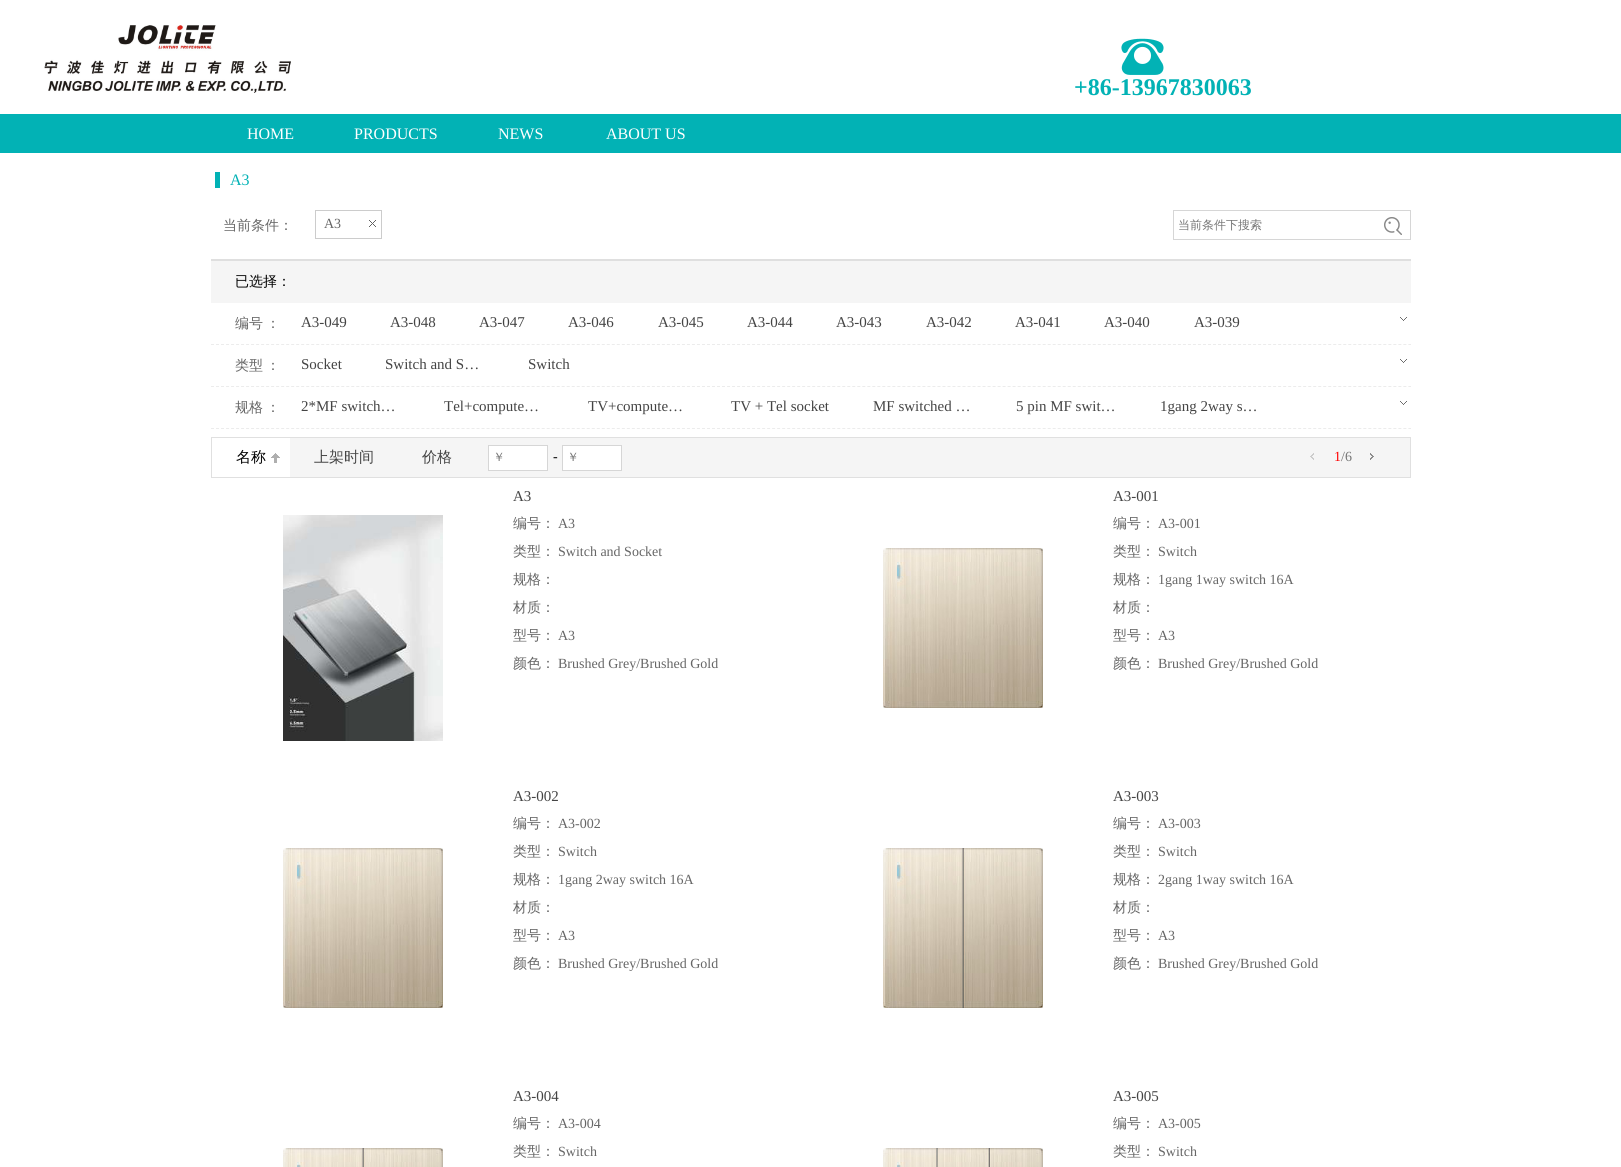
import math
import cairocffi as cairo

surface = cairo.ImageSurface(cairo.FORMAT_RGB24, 1621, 1167)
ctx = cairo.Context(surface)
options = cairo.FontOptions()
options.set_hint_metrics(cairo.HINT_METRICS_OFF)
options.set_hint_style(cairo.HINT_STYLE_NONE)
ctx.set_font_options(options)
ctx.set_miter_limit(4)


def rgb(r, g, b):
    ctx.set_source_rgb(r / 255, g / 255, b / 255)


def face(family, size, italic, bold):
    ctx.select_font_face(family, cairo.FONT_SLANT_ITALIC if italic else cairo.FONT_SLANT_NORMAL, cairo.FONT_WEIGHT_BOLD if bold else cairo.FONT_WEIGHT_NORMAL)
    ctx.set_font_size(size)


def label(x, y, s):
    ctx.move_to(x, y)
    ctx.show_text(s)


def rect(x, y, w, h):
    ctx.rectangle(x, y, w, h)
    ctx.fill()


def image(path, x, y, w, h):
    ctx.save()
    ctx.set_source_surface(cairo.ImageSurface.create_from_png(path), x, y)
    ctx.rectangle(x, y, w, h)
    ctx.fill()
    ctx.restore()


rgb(255, 255, 255)
ctx.paint()
image('image0.png', 44, 25, 247, 68)
image('image1.png', 1121, 38, 43, 37)
face('Liberation Serif', 24, 0, 1)
rgb(2, 178, 181)
label(1074, 95, '+86-13967830063')
rect(0, 114, 1621, 39)
face('Liberation Serif', 16, 0, 0)
rgb(255, 255, 255)
label(247, 139, 'HOME')
label(354, 139, 'PRODUCTS')
label(498, 139, 'NEWS')
label(606, 139, 'ABOUT US')
rgb(2, 178, 181)
rect(215, 172, 5, 16)
label(230, 185, 'A3')
face('WenQuanYi Zen Hei Medium', 14, 0, 0)
rgb(102, 102, 102)
label(223, 230, '当前条件：')
ctx.rectangle(315.5, 210.5, 66, 28)
rgb(204, 204, 204)
ctx.set_line_width(1)
ctx.stroke()
face('Liberation Serif', 14, 0, 0)
rgb(102, 102, 102)
label(324, 228, 'A3')
image('image2.png', 369, 220, 7, 7)
ctx.rectangle(1173.5, 210.5, 237, 29)
rgb(214, 214, 214)
ctx.stroke()
face('WenQuanYi Zen Hei Medium', 12, 0, 0)
rgb(117, 117, 117)
label(1178, 229, '当前条件下搜索')
image('image3.png', 1384, 217, 18, 18)
rgb(245, 245, 245)
rect(211, 261, 1200, 42)
rgb(223, 223, 223)
rect(211, 259, 1200, 2)
face('WenQuanYi Zen Hei Medium', 14, 0, 0)
rgb(0, 0, 0)
label(235, 286, '已选择：')
ctx.new_path()
ctx.move_to(211, 344.5)
ctx.line_to(1411, 344.5)
rgb(236, 236, 236)
ctx.set_dash([3, 2.01])
ctx.stroke()
ctx.save()
ctx.rectangle(235, 315, 32, 18)
ctx.clip()
rgb(102, 102, 102)
label(235, 328, '编号')
ctx.restore()
rgb(102, 102, 102)
label(266, 328, '：')
face('Liberation Serif', 15, 0, 0)
rgb(68, 68, 68)
label(301, 327, 'A3-049')
label(390, 327, 'A3-048')
label(479, 327, 'A3-047')
label(568, 327, 'A3-046')
label(658, 327, 'A3-045')
label(747, 327, 'A3-044')
label(836, 327, 'A3-043')
label(926, 327, 'A3-042')
label(1015, 327, 'A3-041')
label(1104, 327, 'A3-040')
label(1194, 327, 'A3-039')
image('image4.png', 1400, 317, 7, 4)
ctx.new_path()
ctx.move_to(211, 386.5)
ctx.line_to(1411, 386.5)
rgb(236, 236, 236)
ctx.stroke()
face('WenQuanYi Zen Hei Medium', 14, 0, 0)
rgb(102, 102, 102)
label(235, 370, '类型')
label(266, 370, '：')
face('Liberation Serif', 15, 0, 0)
rgb(68, 68, 68)
label(301, 369, 'Socket')
label(385, 369, 'Switch and S…')
label(528, 369, 'Switch')
image('image4.png', 1400, 359, 7, 4)
ctx.new_path()
ctx.move_to(211, 428.5)
ctx.line_to(1411, 428.5)
rgb(236, 236, 236)
ctx.stroke()
face('WenQuanYi Zen Hei Medium', 14, 0, 0)
rgb(102, 102, 102)
label(235, 412, '规格')
label(266, 412, '：')
face('Liberation Serif', 15, 0, 0)
rgb(68, 68, 68)
label(301, 411, '2*MF switch…')
label(444, 411, 'Tel+compute…')
ctx.save()
ctx.rectangle(588, 398, 100, 17)
ctx.clip()
label(588, 411, 'TV+compute…')
ctx.restore()
label(731, 411, 'TV + Tel socket')
label(873, 411, 'MF switched …')
label(1016, 411, '5 pin MF swit…')
label(1160, 411, '1gang 2way s…')
image('image4.png', 1400, 401, 7, 4)
rgb(245, 245, 245)
rect(290, 438, 1120, 39)
ctx.rectangle(211.5, 437.5, 1199, 40)
rgb(224, 224, 224)
ctx.set_dash([])
ctx.stroke()
face('WenQuanYi Zen Hei Medium', 15, 0, 0)
rgb(0, 0, 0)
label(236, 462, '名称')
image('image5.png', 271, 453, 9, 10)
rgb(68, 68, 68)
label(314, 462, '上架时间')
label(422, 462, '价格')
rgb(255, 255, 255)
ctx.rectangle(488.5, 445.5, 59, 25)
ctx.fill_preserve()
rgb(214, 214, 214)
ctx.stroke()
face('WenQuanYi Zen Hei Medium', 12, 0, 0)
rgb(117, 117, 117)
label(493, 461, '￥')
face('Liberation Serif', 14, 0, 0)
rgb(0, 0, 0)
label(553, 461, '-')
rgb(255, 255, 255)
ctx.rectangle(562.5, 445.5, 59, 25)
ctx.fill_preserve()
rgb(214, 214, 214)
ctx.stroke()
face('WenQuanYi Zen Hei Medium', 12, 0, 0)
rgb(117, 117, 117)
label(567, 461, '￥')
image('image6.png', 1310, 453, 4, 7)
face('Liberation Serif', 14, 0, 0)
rgb(255, 0, 0)
label(1334, 461, '1')
rgb(117, 117, 117)
label(1341, 461, '/6')
image('image7.png', 1370, 453, 4, 7)
image('image8.png', 283, 515, 160, 226)
face('Liberation Serif', 15, 0, 0)
rgb(68, 68, 68)
label(513, 501, 'A3')
ctx.save()
ctx.rectangle(513, 515, 276, 18)
ctx.clip()
face('WenQuanYi Zen Hei Medium', 14, 0, 0)
rgb(102, 102, 102)
label(513, 528, '编号：')
ctx.restore()
face('Liberation Serif', 14, 0, 0)
rgb(102, 102, 102)
label(558, 528, 'A3')
face('WenQuanYi Zen Hei Medium', 14, 0, 0)
label(513, 556, '类型：')
face('Liberation Serif', 14, 0, 0)
label(558, 556, 'Switch and Socket')
face('WenQuanYi Zen Hei Medium', 14, 0, 0)
label(513, 584, '规格：')
label(513, 612, '材质：')
label(513, 640, '型号：')
face('Liberation Serif', 14, 0, 0)
label(558, 640, 'A3')
face('WenQuanYi Zen Hei Medium', 14, 0, 0)
label(513, 668, '颜色：')
face('Liberation Serif', 14, 0, 0)
label(558, 668, 'Brushed Grey/Brushed Gold')
image('image9.png', 883, 548, 160, 160)
face('Liberation Serif', 15, 0, 0)
rgb(68, 68, 68)
label(1113, 501, 'A3-001')
ctx.save()
ctx.rectangle(1113, 515, 276, 18)
ctx.clip()
face('WenQuanYi Zen Hei Medium', 14, 0, 0)
rgb(102, 102, 102)
label(1113, 528, '编号：')
ctx.restore()
face('Liberation Serif', 14, 0, 0)
rgb(102, 102, 102)
label(1158, 528, 'A3-001')
face('WenQuanYi Zen Hei Medium', 14, 0, 0)
label(1113, 556, '类型：')
face('Liberation Serif', 14, 0, 0)
label(1158, 556, 'Switch')
face('WenQuanYi Zen Hei Medium', 14, 0, 0)
label(1113, 584, '规格：')
face('Liberation Serif', 14, 0, 0)
label(1158, 584, '1gang 1way switch 16A')
face('WenQuanYi Zen Hei Medium', 14, 0, 0)
label(1113, 612, '材质：')
label(1113, 640, '型号：')
face('Liberation Serif', 14, 0, 0)
label(1158, 640, 'A3')
face('WenQuanYi Zen Hei Medium', 14, 0, 0)
label(1113, 668, '颜色：')
face('Liberation Serif', 14, 0, 0)
label(1158, 668, 'Brushed Grey/Brushed Gold')
image('image10.png', 283, 848, 160, 160)
face('Liberation Serif', 15, 0, 0)
rgb(68, 68, 68)
label(513, 801, 'A3-002')
ctx.save()
ctx.rectangle(513, 815, 276, 18)
ctx.clip()
face('WenQuanYi Zen Hei Medium', 14, 0, 0)
rgb(102, 102, 102)
label(513, 828, '编号：')
ctx.restore()
face('Liberation Serif', 14, 0, 0)
rgb(102, 102, 102)
label(558, 828, 'A3-002')
face('WenQuanYi Zen Hei Medium', 14, 0, 0)
label(513, 856, '类型：')
face('Liberation Serif', 14, 0, 0)
label(558, 856, 'Switch')
face('WenQuanYi Zen Hei Medium', 14, 0, 0)
label(513, 884, '规格：')
face('Liberation Serif', 14, 0, 0)
label(558, 884, '1gang 2way switch 16A')
face('WenQuanYi Zen Hei Medium', 14, 0, 0)
label(513, 912, '材质：')
label(513, 940, '型号：')
face('Liberation Serif', 14, 0, 0)
label(558, 940, 'A3')
face('WenQuanYi Zen Hei Medium', 14, 0, 0)
label(513, 968, '颜色：')
face('Liberation Serif', 14, 0, 0)
label(558, 968, 'Brushed Grey/Brushed Gold')
image('image11.png', 883, 848, 160, 160)
face('Liberation Serif', 15, 0, 0)
rgb(68, 68, 68)
label(1113, 801, 'A3-003')
ctx.save()
ctx.rectangle(1113, 815, 276, 18)
ctx.clip()
face('WenQuanYi Zen Hei Medium', 14, 0, 0)
rgb(102, 102, 102)
label(1113, 828, '编号：')
ctx.restore()
face('Liberation Serif', 14, 0, 0)
rgb(102, 102, 102)
label(1158, 828, 'A3-003')
face('WenQuanYi Zen Hei Medium', 14, 0, 0)
label(1113, 856, '类型：')
face('Liberation Serif', 14, 0, 0)
label(1158, 856, 'Switch')
face('WenQuanYi Zen Hei Medium', 14, 0, 0)
label(1113, 884, '规格：')
face('Liberation Serif', 14, 0, 0)
label(1158, 884, '2gang 1way switch 16A')
face('WenQuanYi Zen Hei Medium', 14, 0, 0)
label(1113, 912, '材质：')
label(1113, 940, '型号：')
face('Liberation Serif', 14, 0, 0)
label(1158, 940, 'A3')
face('WenQuanYi Zen Hei Medium', 14, 0, 0)
label(1113, 968, '颜色：')
face('Liberation Serif', 14, 0, 0)
label(1158, 968, 'Brushed Grey/Brushed Gold')
image('image12.png', 283, 1148, 160, 19)
face('Liberation Serif', 15, 0, 0)
rgb(68, 68, 68)
label(513, 1101, 'A3-004')
ctx.save()
ctx.rectangle(513, 1115, 276, 18)
ctx.clip()
face('WenQuanYi Zen Hei Medium', 14, 0, 0)
rgb(102, 102, 102)
label(513, 1128, '编号：')
ctx.restore()
face('Liberation Serif', 14, 0, 0)
rgb(102, 102, 102)
label(558, 1128, 'A3-004')
face('WenQuanYi Zen Hei Medium', 14, 0, 0)
label(513, 1156, '类型：')
face('Liberation Serif', 14, 0, 0)
label(558, 1156, 'Switch')
image('image13.png', 883, 1148, 160, 19)
face('Liberation Serif', 15, 0, 0)
rgb(68, 68, 68)
label(1113, 1101, 'A3-005')
ctx.save()
ctx.rectangle(1113, 1115, 276, 18)
ctx.clip()
face('WenQuanYi Zen Hei Medium', 14, 0, 0)
rgb(102, 102, 102)
label(1113, 1128, '编号：')
ctx.restore()
face('Liberation Serif', 14, 0, 0)
rgb(102, 102, 102)
label(1158, 1128, 'A3-005')
face('WenQuanYi Zen Hei Medium', 14, 0, 0)
label(1113, 1156, '类型：')
face('Liberation Serif', 14, 0, 0)
label(1158, 1156, 'Switch')
surface.write_to_png('render.png')
